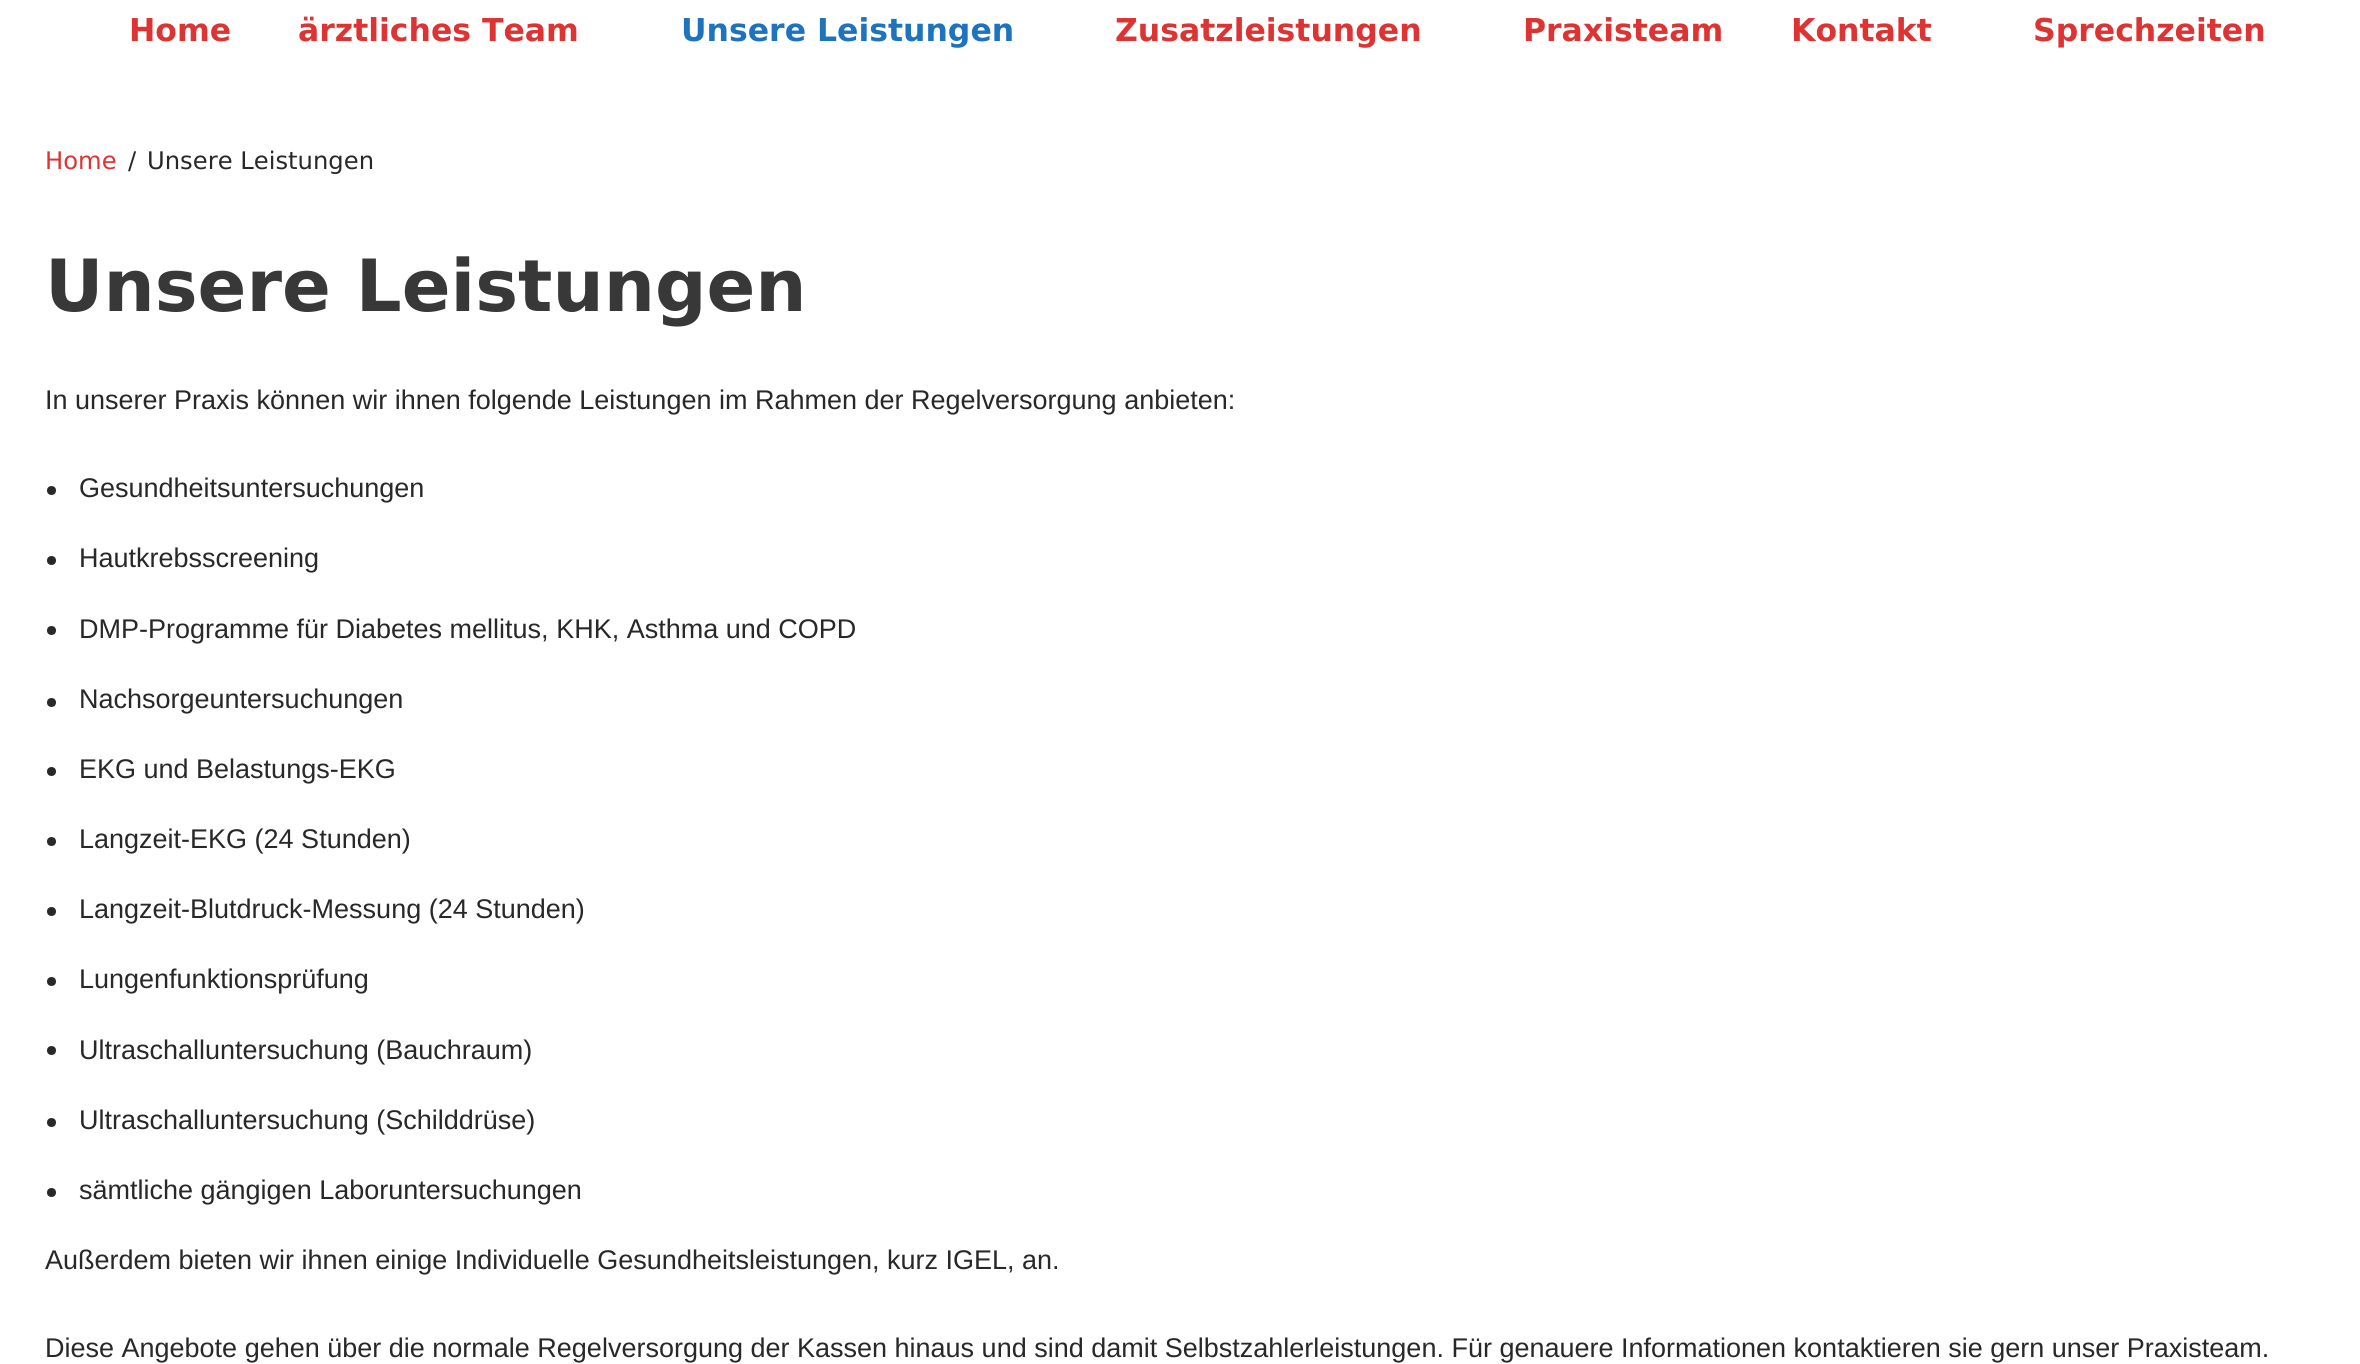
import math
import cairocffi as cairo

surface = cairo.ImageSurface(cairo.FORMAT_RGB24, 2360, 1364)
ctx = cairo.Context(surface)
options = cairo.FontOptions()
options.set_hint_metrics(cairo.HINT_METRICS_OFF)
options.set_hint_style(cairo.HINT_STYLE_NONE)
ctx.set_font_options(options)
ctx.set_miter_limit(4)


def rgb(r, g, b):
    ctx.set_source_rgb(r / 255, g / 255, b / 255)


def face(family, size, italic, bold):
    ctx.select_font_face(family, cairo.FONT_SLANT_ITALIC if italic else cairo.FONT_SLANT_NORMAL, cairo.FONT_WEIGHT_BOLD if bold else cairo.FONT_WEIGHT_NORMAL)
    ctx.set_font_size(size)


def label(x, y, s):
    ctx.move_to(x, y)
    ctx.show_text(s)


rgb(255, 255, 255)
ctx.paint()
face('DejaVu Sans', 31.5, 0, 1)
rgb(221, 51, 51)
label(129, 41, 'Home')
label(298, 41, 'ärztliches Team')
rgb(30, 115, 190)
label(681, 41, 'Unsere Leistungen')
rgb(221, 51, 51)
label(1115, 41, 'Zusatzleistungen')
label(1523, 41, 'Praxisteam')
label(1791, 41, 'Kontakt')
label(2033, 41, 'Sprechzeiten')
face('DejaVu Sans', 24.25, 0, 0)
label(45, 169, 'Home')
rgb(40, 40, 40)
label(128, 169, '/')
label(147, 169, 'Unsere Leistungen')
face('DejaVu Sans', 72, 0, 1)
rgb(56, 56, 56)
label(45, 311, 'Unsere Leistungen')
face('Liberation Sans', 27, 0, 0)
rgb(40, 40, 40)
label(45, 409, 'In unserer Praxis können wir ihnen folgende Leistungen im Rahmen der Regelversorgung anbieten:')
ctx.new_path()
ctx.arc(51.5, 490.5, 4.5, 0, 2 * math.pi)
ctx.fill()
label(79, 497, 'Gesundheitsuntersuchungen')
ctx.new_path()
ctx.arc(51.5, 560.5, 4.5, 0, 2 * math.pi)
ctx.fill()
label(79, 567, 'Hautkrebsscreening')
ctx.new_path()
ctx.arc(51.5, 630.5, 4.5, 0, 2 * math.pi)
ctx.fill()
label(79, 638, 'DMP-Programme für Diabetes mellitus, KHK, Asthma und COPD')
ctx.new_path()
ctx.arc(51.5, 702.5, 4.5, 0, 2 * math.pi)
ctx.fill()
label(79, 708, 'Nachsorgeuntersuchungen')
ctx.new_path()
ctx.arc(51.5, 771.5, 4.5, 0, 2 * math.pi)
ctx.fill()
label(79, 778, 'EKG und Belastungs-EKG')
ctx.new_path()
ctx.arc(51.5, 841.5, 4.5, 0, 2 * math.pi)
ctx.fill()
label(79, 848, 'Langzeit-EKG (24 Stunden)')
ctx.new_path()
ctx.arc(51.5, 911.5, 4.5, 0, 2 * math.pi)
ctx.fill()
label(79, 918, 'Langzeit-Blutdruck-Messung (24 Stunden)')
ctx.new_path()
ctx.arc(51.5, 981.5, 4.5, 0, 2 * math.pi)
ctx.fill()
label(79, 988, 'Lungenfunktionsprüfung')
ctx.new_path()
ctx.arc(51.5, 1050.5, 4.5, 0, 2 * math.pi)
ctx.fill()
label(79, 1059, 'Ultraschalluntersuchung (Bauchraum)')
ctx.new_path()
ctx.arc(51.5, 1122.5, 4.5, 0, 2 * math.pi)
ctx.fill()
label(79, 1129, 'Ultraschalluntersuchung (Schilddrüse)')
ctx.new_path()
ctx.arc(51.5, 1192.5, 4.5, 0, 2 * math.pi)
ctx.fill()
label(79, 1199, 'sämtliche gängigen Laboruntersuchungen')
label(45, 1269, 'Außerdem bieten wir ihnen einige Individuelle Gesundheitsleistungen, kurz IGEL, an.')
label(45, 1357, 'Diese Angebote gehen über die normale Regelversorgung der Kassen hinaus und sind damit Selbstzahlerleistungen. Für genauere Informationen kontaktieren sie gern unser Praxisteam.')
surface.write_to_png('render.png')
